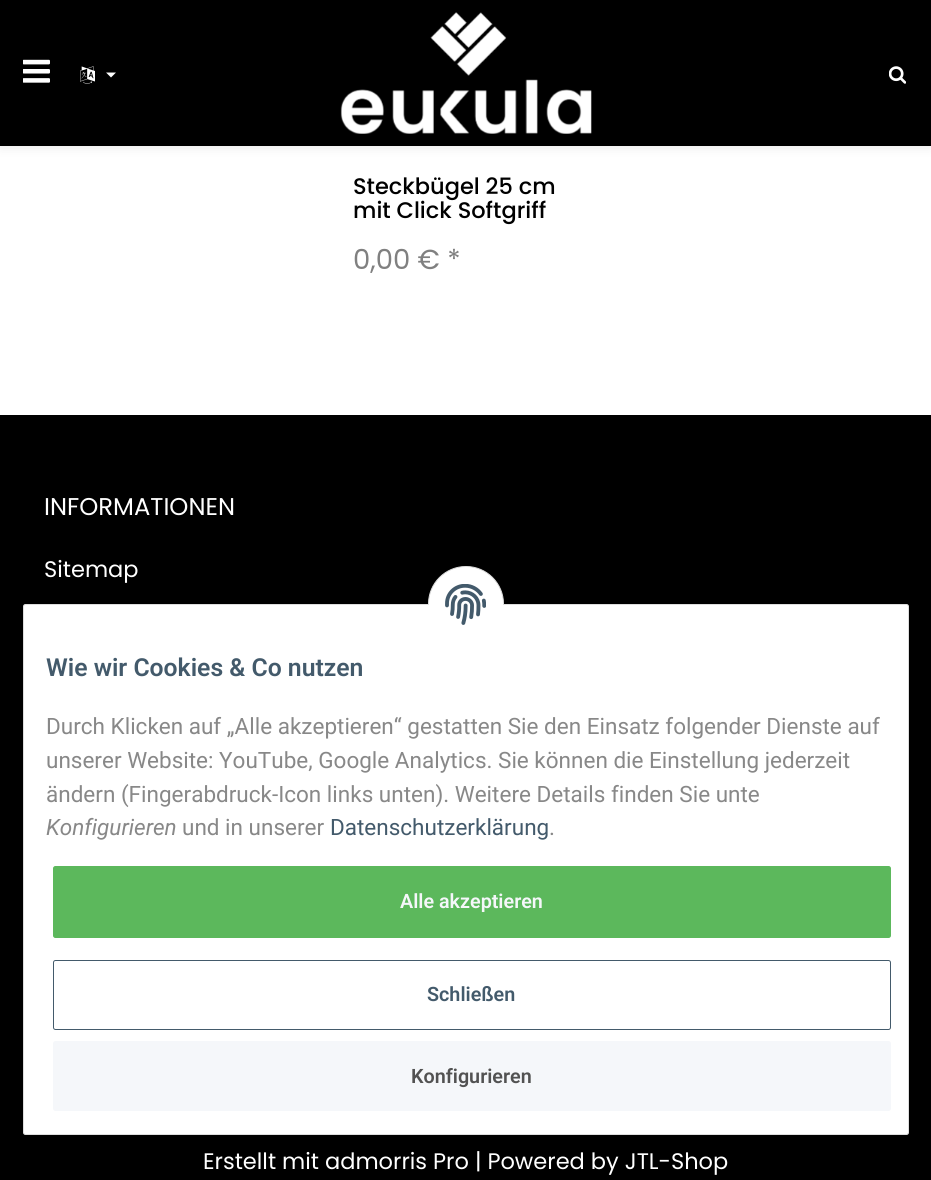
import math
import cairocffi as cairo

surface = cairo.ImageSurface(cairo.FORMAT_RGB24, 931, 1180)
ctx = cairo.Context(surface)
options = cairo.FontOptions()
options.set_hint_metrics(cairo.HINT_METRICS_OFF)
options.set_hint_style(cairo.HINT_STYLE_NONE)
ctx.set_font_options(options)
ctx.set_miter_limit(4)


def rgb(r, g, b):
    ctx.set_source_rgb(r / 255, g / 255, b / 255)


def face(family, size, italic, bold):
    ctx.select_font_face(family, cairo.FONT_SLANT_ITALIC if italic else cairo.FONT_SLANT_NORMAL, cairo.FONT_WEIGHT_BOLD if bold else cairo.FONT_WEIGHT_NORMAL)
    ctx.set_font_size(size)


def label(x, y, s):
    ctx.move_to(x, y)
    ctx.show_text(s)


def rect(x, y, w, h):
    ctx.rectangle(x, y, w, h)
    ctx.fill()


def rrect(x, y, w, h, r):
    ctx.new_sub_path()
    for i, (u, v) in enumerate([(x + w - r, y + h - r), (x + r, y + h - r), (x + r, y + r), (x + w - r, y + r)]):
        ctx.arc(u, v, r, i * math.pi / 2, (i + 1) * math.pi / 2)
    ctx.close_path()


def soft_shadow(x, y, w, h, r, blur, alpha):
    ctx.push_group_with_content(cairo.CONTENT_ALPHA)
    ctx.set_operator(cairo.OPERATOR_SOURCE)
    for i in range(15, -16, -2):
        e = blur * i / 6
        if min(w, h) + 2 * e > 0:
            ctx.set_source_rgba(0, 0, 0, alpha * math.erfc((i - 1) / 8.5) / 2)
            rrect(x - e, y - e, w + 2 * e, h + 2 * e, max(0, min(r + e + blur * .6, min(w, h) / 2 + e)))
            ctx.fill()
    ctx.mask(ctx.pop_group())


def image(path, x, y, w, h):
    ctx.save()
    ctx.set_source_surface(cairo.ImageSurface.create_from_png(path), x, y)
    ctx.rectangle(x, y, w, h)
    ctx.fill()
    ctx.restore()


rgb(255, 255, 255)
ctx.paint()
rgb(0, 0, 0)
soft_shadow(0, 0, 931, 146, 0, 6, 0.1)
rgb(0, 0, 0)
rect(0, 0, 931, 146)
image('image0.png', 23, 59, 27, 24)
image('image1.png', 80, 66, 15, 18)
rgb(255, 255, 255)
ctx.new_path()
ctx.move_to(106, 72.5)
ctx.line_to(116, 72.5)
ctx.line_to(111, 77.5)
ctx.close_path()
ctx.fill()
image('image2.png', 340, 12, 252, 122)
image('image3.png', 889, 66, 17, 18)
face('Poppins Medium', 22.5, 0, 0)
rgb(0, 0, 0)
label(353, 194, 'Steckbügel 25 cm')
label(353, 218, 'mit Click Softgriff')
face('Poppins', 27.5, 0, 0)
rgb(128, 128, 128)
label(353, 269, '0,00 € *')
rgb(0, 0, 0)
rect(0, 415, 931, 765)
face('Poppins', 24.25, 0, 0)
rgb(255, 255, 255)
label(44, 515, 'INFORMATIONEN')
face('Poppins', 22.5, 0, 0)
label(44, 577, 'Sitemap')
label(203, 1169, 'Erstellt mit admorris Pro | Powered by JTL-Shop')
rrect(23.5, 604.5, 885, 530, 2)
ctx.fill_preserve()
rgb(221, 221, 221)
ctx.set_line_width(1)
ctx.stroke()
rgb(255, 255, 255)
rrect(428.5, 566.5, 75, 77, 37.5)
ctx.fill_preserve()
rgb(221, 221, 221)
ctx.stroke()
rgb(255, 255, 255)
rect(428, 605, 76, 39)
image('image4.png', 445, 584, 41, 41)
face('Roboto SemiBold', 24.75, 0, 0)
rgb(67, 90, 107)
label(46, 676, 'Wie wir Cookies & Co nutzen')
face('Roboto', 22.5, 0, 0)
rgb(136, 136, 136)
label(46, 734, 'Durch Klicken auf „Alle akzeptieren“ gestatten Sie den Einsatz folgender Dienste auf')
label(46, 768, 'unserer Website: YouTube, Google Analytics. Sie können die Einstellung jederzeit')
label(46, 802, 'ändern (Fingerabdruck-Icon links unten). Weitere Details finden Sie unte')
face('Roboto', 22.5, 1, 0)
label(46, 835, 'Konfigurieren')
face('Roboto', 22.5, 0, 0)
label(182, 835, 'und in unserer')
rgb(67, 90, 107)
label(330, 835, 'Datenschutzerklärung')
rgb(136, 136, 136)
label(549, 835, '.')
rgb(92, 184, 92)
rrect(53.5, 866.5, 837, 71, 2)
ctx.fill_preserve()
ctx.stroke()
face('Roboto SemiBold', 19.75, 0, 0)
rgb(245, 247, 250)
label(400, 908, 'Alle akzeptieren')
rrect(53.5, 960.5, 837, 69, 2)
rgb(67, 90, 107)
ctx.stroke()
label(427, 1001, 'Schließen')
rgb(245, 247, 250)
rrect(53, 1041, 838, 70, 2.5)
ctx.fill()
rgb(82, 82, 82)
label(411, 1083, 'Konfigurieren')
surface.write_to_png('render.png')
